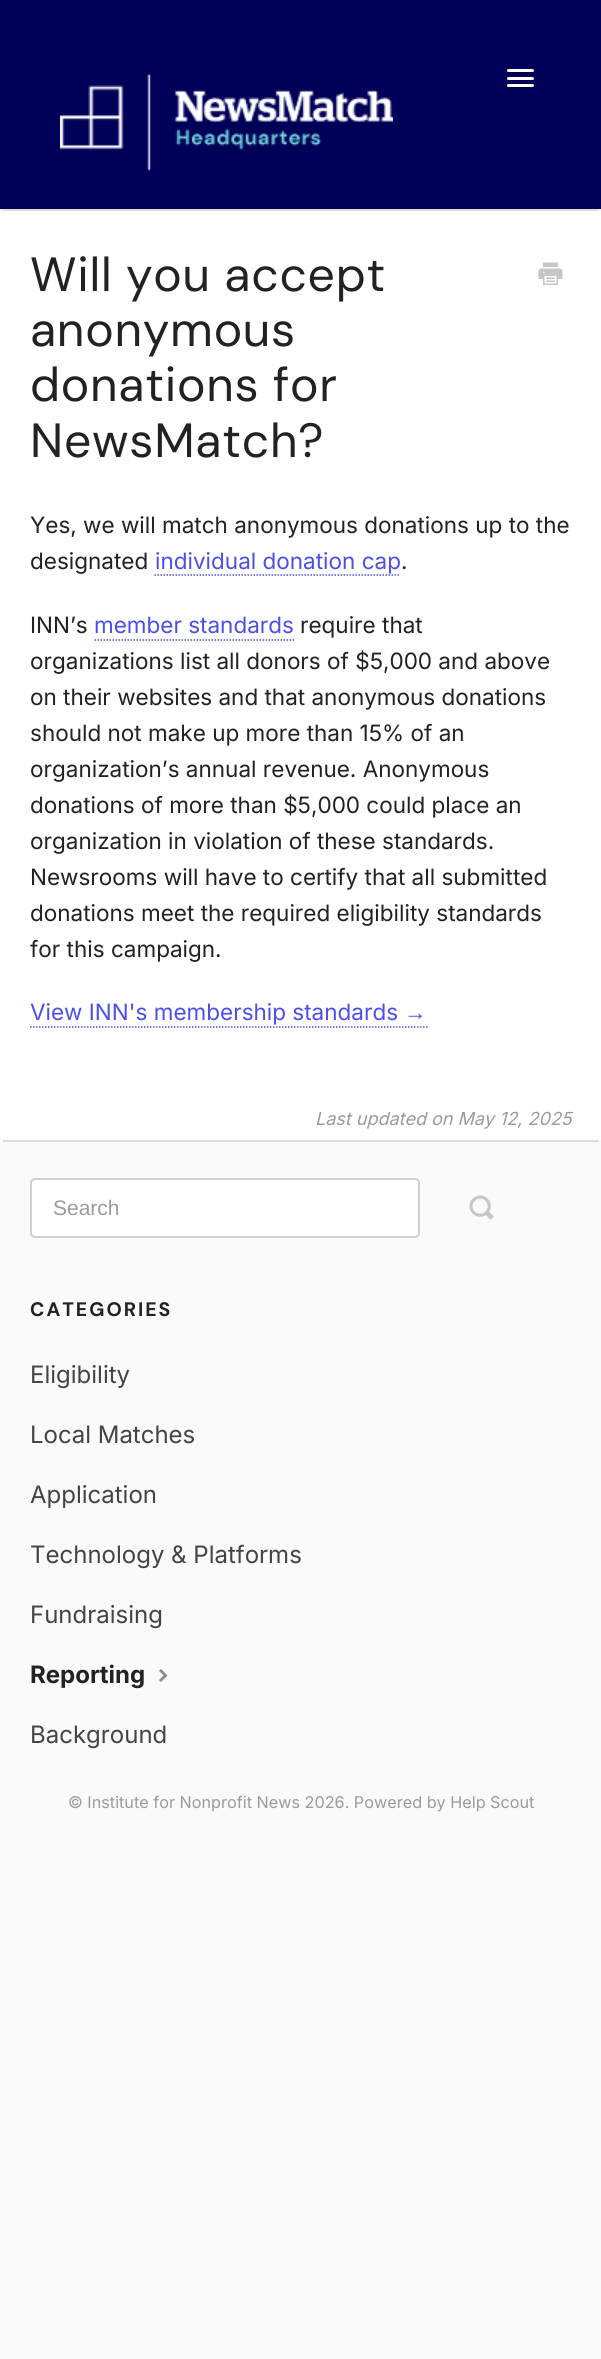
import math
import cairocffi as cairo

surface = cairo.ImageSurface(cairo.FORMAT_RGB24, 601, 2359)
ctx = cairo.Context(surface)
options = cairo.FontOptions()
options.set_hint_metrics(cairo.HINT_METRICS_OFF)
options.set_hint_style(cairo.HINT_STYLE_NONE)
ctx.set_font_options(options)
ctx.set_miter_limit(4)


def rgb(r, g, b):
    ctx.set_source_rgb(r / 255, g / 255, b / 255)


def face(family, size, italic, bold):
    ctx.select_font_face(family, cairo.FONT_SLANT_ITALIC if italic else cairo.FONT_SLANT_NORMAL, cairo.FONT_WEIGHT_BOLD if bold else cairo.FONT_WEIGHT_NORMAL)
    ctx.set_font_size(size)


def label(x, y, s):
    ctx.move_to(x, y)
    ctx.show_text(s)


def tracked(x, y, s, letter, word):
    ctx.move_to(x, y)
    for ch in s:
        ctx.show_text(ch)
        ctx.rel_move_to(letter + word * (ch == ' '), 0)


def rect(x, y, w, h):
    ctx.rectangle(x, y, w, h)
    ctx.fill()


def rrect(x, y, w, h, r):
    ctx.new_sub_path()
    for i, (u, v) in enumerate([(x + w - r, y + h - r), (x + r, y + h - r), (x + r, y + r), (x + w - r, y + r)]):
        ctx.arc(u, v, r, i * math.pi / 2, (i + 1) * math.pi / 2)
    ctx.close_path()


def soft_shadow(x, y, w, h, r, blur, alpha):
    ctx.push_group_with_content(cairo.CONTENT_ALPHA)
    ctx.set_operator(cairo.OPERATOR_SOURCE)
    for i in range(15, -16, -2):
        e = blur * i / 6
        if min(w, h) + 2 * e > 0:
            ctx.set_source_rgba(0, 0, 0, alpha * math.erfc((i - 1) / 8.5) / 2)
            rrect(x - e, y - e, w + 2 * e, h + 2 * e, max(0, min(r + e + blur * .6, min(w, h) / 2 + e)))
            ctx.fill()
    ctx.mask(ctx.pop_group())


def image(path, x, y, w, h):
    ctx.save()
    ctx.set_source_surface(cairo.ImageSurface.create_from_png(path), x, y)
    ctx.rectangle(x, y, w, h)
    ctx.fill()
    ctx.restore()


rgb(250, 250, 250)
ctx.paint()
rgb(0, 0, 0)
soft_shadow(0, 2, 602, 208, 0, 3, 0.07)
rgb(0, 0, 88)
rect(0, 0, 601, 209)
image('image0.png', 60, 73, 333, 99)
rgb(0, 0, 66)
ctx.new_path()
ctx.move_to(507.5, 71.5)
ctx.line_to(507, 73)
ctx.curve_to(507.5, 75, 512, 74, 512.5, 74)
ctx.line_to(528.5, 74)
ctx.curve_to(529, 74, 533.5, 75, 534, 73)
ctx.line_to(533.5, 71.5)
ctx.line_to(532.5, 72)
ctx.line_to(508.5, 72)
ctx.close_path()
ctx.fill()
rgb(255, 255, 255)
rrect(507, 69, 27, 3, 1.5)
ctx.fill()
rgb(0, 0, 66)
ctx.new_path()
ctx.move_to(507, 78.5)
ctx.curve_to(505.5, 82, 512.5, 81, 512.5, 81)
ctx.line_to(528.5, 81)
ctx.curve_to(528.5, 81, 535.5, 82, 534, 78.5)
ctx.curve_to(533.5, 79, 533, 79.5, 532.5, 79.5)
ctx.line_to(508.5, 79.5)
ctx.curve_to(508, 79.5, 507.5, 79, 507, 78.5)
ctx.close_path()
ctx.fill()
rgb(255, 255, 255)
rrect(507, 77, 27, 3, 1.5)
ctx.fill()
rgb(0, 0, 66)
ctx.new_path()
ctx.move_to(507.5, 86.5)
ctx.line_to(507, 88)
ctx.curve_to(507.5, 90, 512, 89, 512.5, 89)
ctx.line_to(528.5, 89)
ctx.curve_to(529, 89, 533.5, 90, 534, 88)
ctx.line_to(533.5, 86.5)
ctx.line_to(532.5, 87)
ctx.line_to(508.5, 87)
ctx.close_path()
ctx.fill()
rgb(255, 255, 255)
rrect(507, 84, 27, 3, 1.5)
ctx.fill()
rrect(0, 209, 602, 933, 6)
ctx.fill()
rgb(222, 222, 222)
rect(3, 209, 596, 2)
rect(3, 1140, 596, 2)
face('DM Sans', 48, 0, 0)
rgb(34, 34, 34)
tracked(30, 291, 'Will you accept', 0.75, 0)
tracked(30, 346, 'anonymous', 0.75, 0)
tracked(30, 401, 'donations for', 0.75, 0)
tracked(30, 457, 'NewsMatch?', 0.75, 0)
image('image1.png', 538, 262, 25, 23)
face('Inter', 22.5, 0, 0)
label(30, 533, 'Yes, we will match anonymous donations up to the')
label(30, 569, 'designated')
rgb(76, 80, 233)
label(155, 569, 'individual donation cap')
ctx.new_path()
ctx.move_to(154.5, 575)
ctx.line_to(400.5, 575)
ctx.set_line_width(1.5)
ctx.set_dash([1.5, 1.5])
ctx.stroke()
rgb(34, 34, 34)
label(401, 569, '.')
label(30, 633, 'INN’s')
rgb(76, 80, 233)
label(94, 633, 'member standards')
ctx.new_path()
ctx.move_to(94.5, 640)
ctx.line_to(294, 640)
ctx.stroke()
rgb(34, 34, 34)
label(300, 633, 'require that')
label(30, 669, 'organizations list all donors of $5,000 and above')
label(30, 705, 'on their websites and that anonymous donations')
label(30, 741, 'should not make up more than 15% of an')
label(30, 777, 'organization’s annual revenue. Anonymous')
label(30, 813, 'donations of more than $5,000 could place an')
label(30, 849, 'organization in violation of these standards.')
label(30, 885, 'Newsrooms will have to certify that all submitted')
label(30, 921, 'donations meet the required eligibility standards')
label(30, 957, 'for this campaign.')
rgb(76, 80, 233)
label(30, 1020, 'View INN\'s membership standards')
face('Liberation Serif', 22.5, 0, 0)
label(404, 1020, '→')
ctx.new_path()
ctx.move_to(30, 1027)
ctx.line_to(427.5, 1027)
ctx.stroke()
face('Inter', 18, 1, 0)
rgb(155, 155, 155)
label(315, 1125, 'Last updated on May 12, 2025')
rgb(255, 255, 255)
rrect(31, 1179, 388, 58, 4)
ctx.fill_preserve()
rgb(208, 208, 208)
ctx.set_line_width(2)
ctx.set_dash([])
ctx.stroke()
face('Liberation Sans', 21, 0, 0)
rgb(155, 155, 155)
label(53, 1215, 'Search')
image('image2.png', 469, 1195, 25, 25)
face('DM Sans', 19.5, 0, 1)
rgb(34, 34, 34)
tracked(30, 1316, 'CATEGORIES', 2, 0)
face('Inter', 24, 0, 0)
rgb(68, 68, 68)
label(30, 1383, 'Eligibility')
label(30, 1443, 'Local Matches')
label(30, 1503, 'Application')
label(30, 1563, 'Technology & Platforms')
label(30, 1623, 'Fundraising')
face('Inter', 24, 0, 1)
rgb(34, 34, 34)
label(30, 1683, 'Reporting')
image('image3.png', 159, 1669, 9, 13)
face('Inter', 24, 0, 0)
rgb(68, 68, 68)
label(30, 1743, 'Background')
face('Inter', 16.2, 0, 0)
rgb(155, 155, 155)
label(68, 1808, '© Institute for Nonprofit News 2026. Powered by Help Scout')
surface.write_to_png('render.png')
